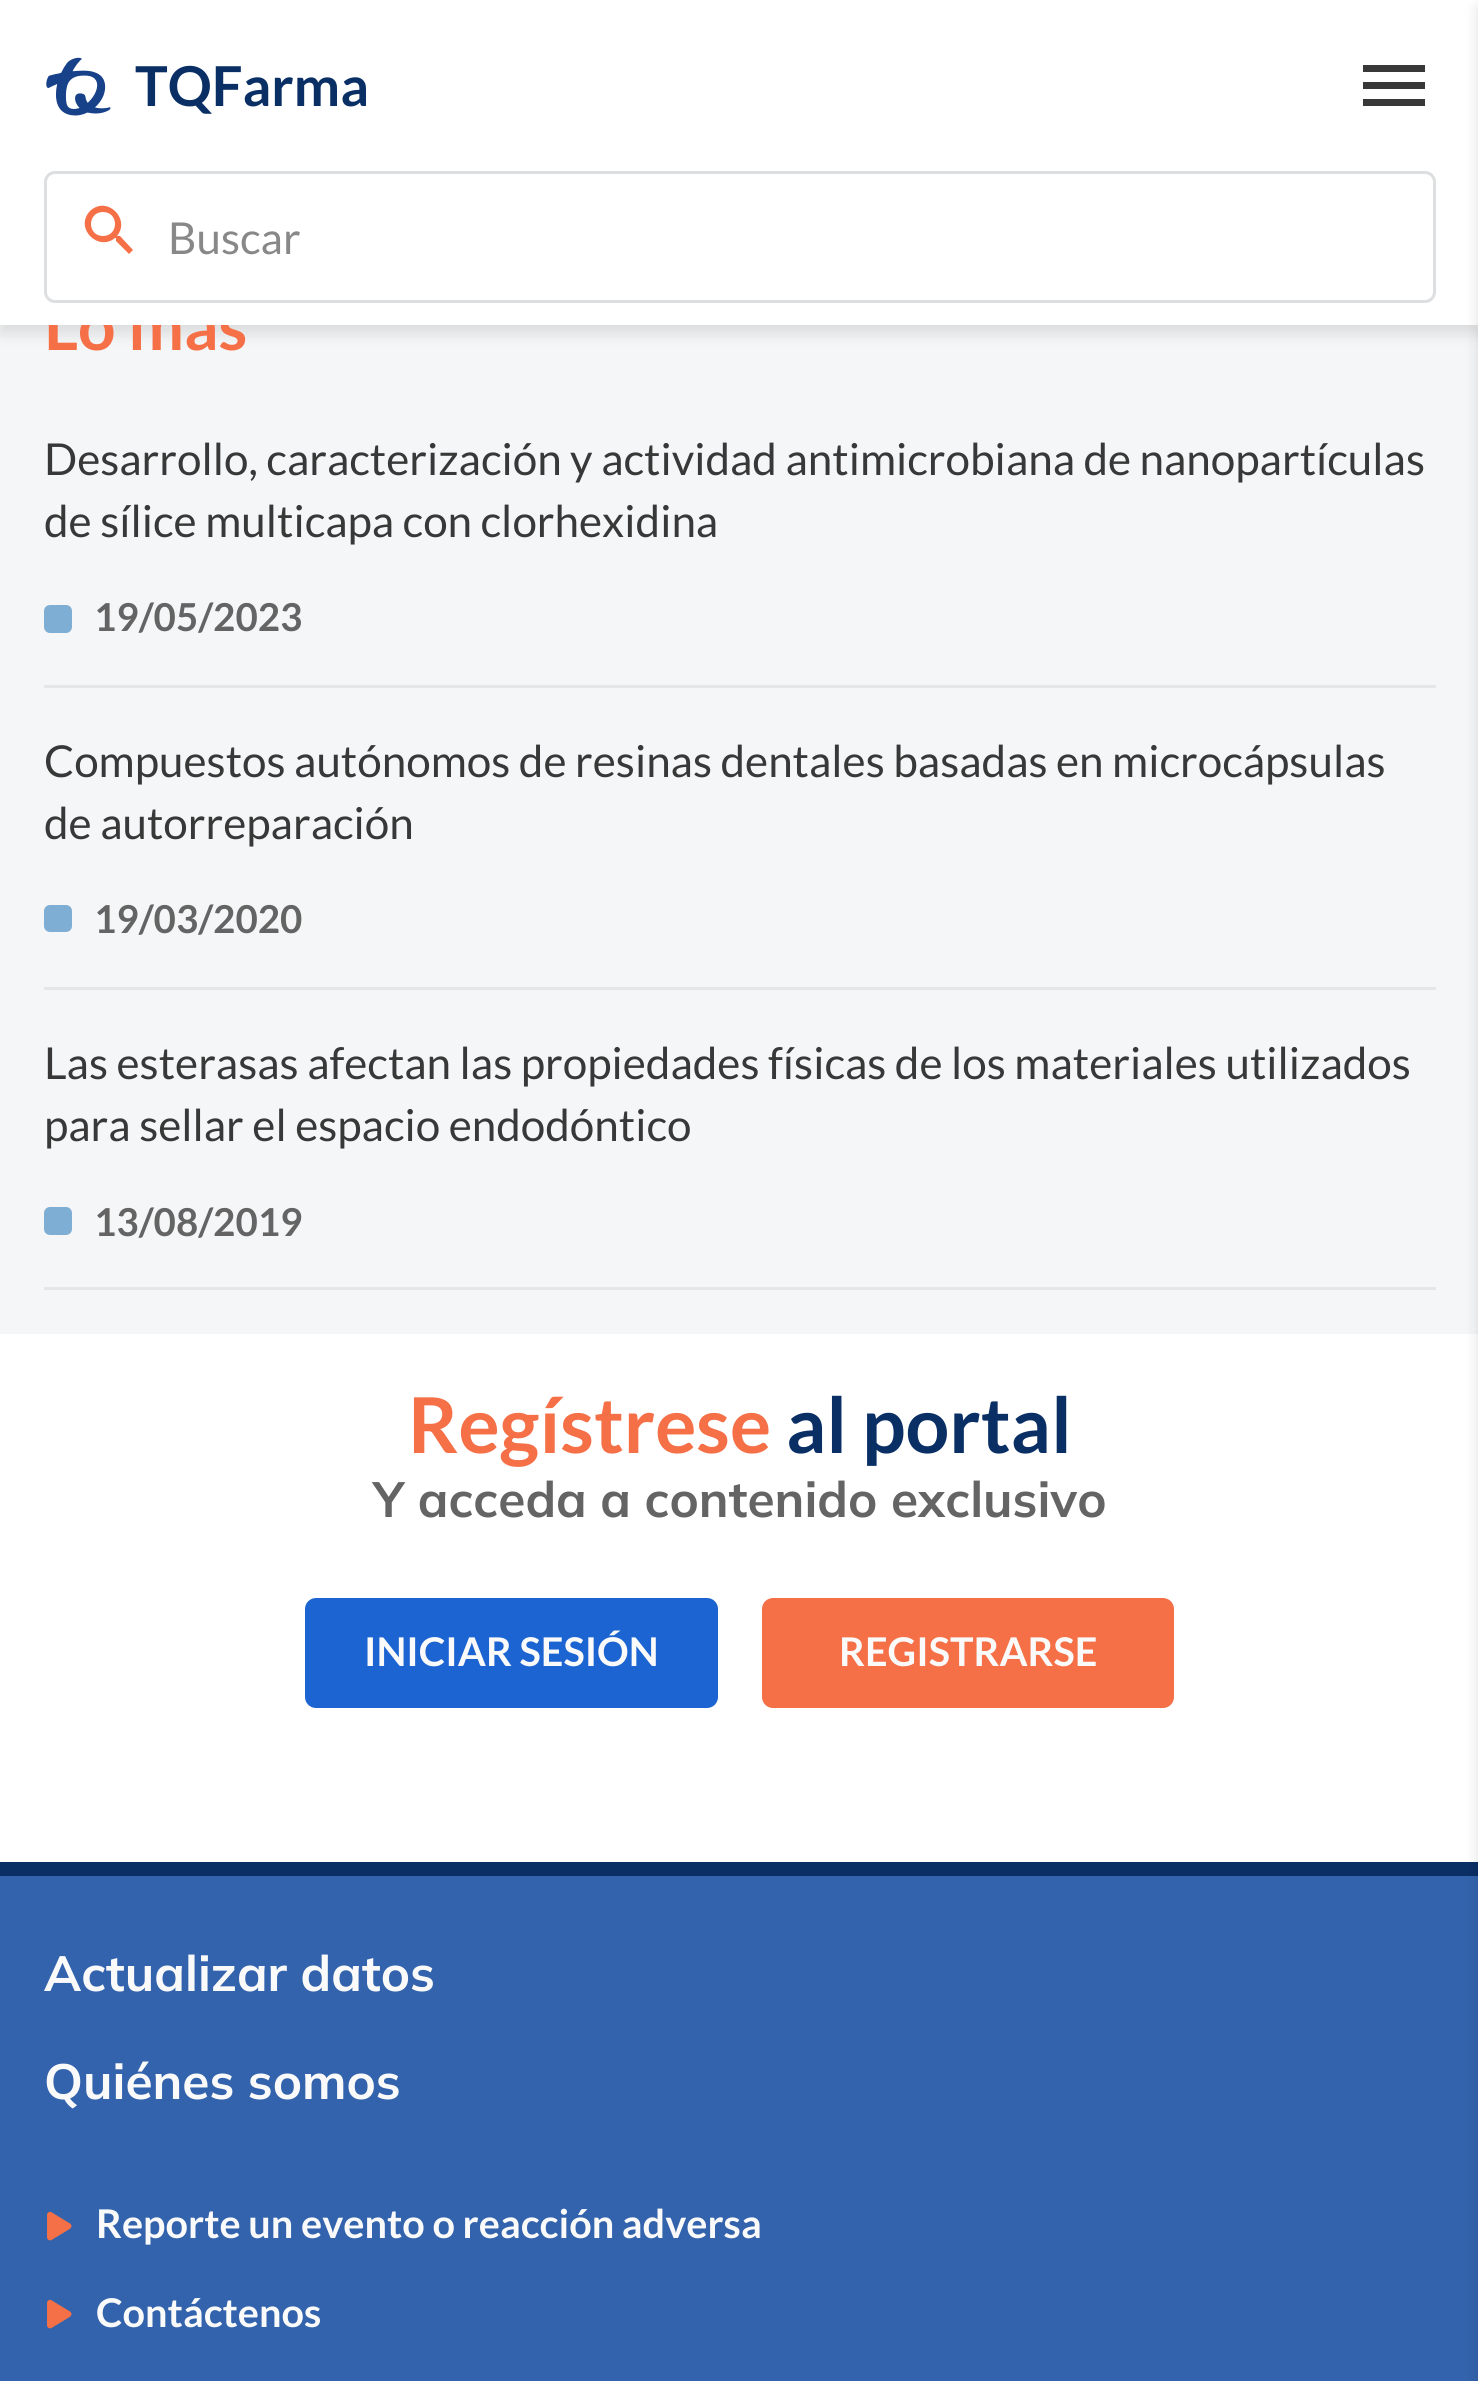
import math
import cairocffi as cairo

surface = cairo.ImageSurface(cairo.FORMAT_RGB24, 1478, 2381)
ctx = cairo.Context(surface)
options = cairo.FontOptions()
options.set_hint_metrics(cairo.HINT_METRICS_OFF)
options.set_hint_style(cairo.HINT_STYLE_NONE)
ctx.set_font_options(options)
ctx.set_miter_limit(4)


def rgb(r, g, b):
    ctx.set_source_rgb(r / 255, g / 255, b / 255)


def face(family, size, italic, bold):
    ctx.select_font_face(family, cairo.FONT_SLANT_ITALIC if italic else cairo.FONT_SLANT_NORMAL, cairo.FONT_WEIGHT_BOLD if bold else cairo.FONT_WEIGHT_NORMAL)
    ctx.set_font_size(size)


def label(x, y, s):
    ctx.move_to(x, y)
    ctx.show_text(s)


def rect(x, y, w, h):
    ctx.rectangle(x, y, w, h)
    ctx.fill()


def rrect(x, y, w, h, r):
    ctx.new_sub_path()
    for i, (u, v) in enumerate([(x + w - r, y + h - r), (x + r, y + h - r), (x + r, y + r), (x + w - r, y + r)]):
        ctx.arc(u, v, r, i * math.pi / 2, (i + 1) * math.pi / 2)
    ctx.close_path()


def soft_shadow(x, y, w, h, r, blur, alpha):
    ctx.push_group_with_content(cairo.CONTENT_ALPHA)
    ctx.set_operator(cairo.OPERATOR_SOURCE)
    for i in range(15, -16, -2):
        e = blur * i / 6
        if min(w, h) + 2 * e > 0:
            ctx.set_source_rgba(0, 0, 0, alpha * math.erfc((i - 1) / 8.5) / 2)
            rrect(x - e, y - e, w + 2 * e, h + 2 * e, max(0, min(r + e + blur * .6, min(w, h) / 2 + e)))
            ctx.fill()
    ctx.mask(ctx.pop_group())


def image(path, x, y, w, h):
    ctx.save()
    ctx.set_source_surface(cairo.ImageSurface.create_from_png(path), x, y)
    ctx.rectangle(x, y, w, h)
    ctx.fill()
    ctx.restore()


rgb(255, 255, 255)
ctx.paint()
rgb(245, 246, 247)
rect(0, 325, 1478, 1009)
rgb(0, 0, 0)
soft_shadow(0, 8, 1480, 325, 0, 8, 0.12)
face('Lato', 66, 0, 1)
rgb(245, 111, 71)
label(44, 350, 'Lo más')
rgb(255, 255, 255)
rect(0, 0, 1478, 325)
image('image0.png', 46, 57, 65, 59)
face('Lato', 55, 0, 1)
rgb(10, 47, 101)
label(135, 106, 'TQFarma')
rgb(56, 56, 56)
ctx.new_path()
ctx.move_to(1363, 106)
ctx.line_to(1425, 106)
ctx.line_to(1425, 99)
ctx.line_to(1363, 99)
ctx.close_path()
ctx.move_to(1363, 89)
ctx.line_to(1425, 89)
ctx.line_to(1425, 82)
ctx.line_to(1363, 82)
ctx.close_path()
ctx.move_to(1363, 65)
ctx.line_to(1363, 72)
ctx.line_to(1425, 72)
ctx.line_to(1425, 65)
ctx.close_path()
ctx.fill()
rrect(45.5, 172.5, 1389, 129, 9.5)
rgb(220, 222, 223)
ctx.set_line_width(3)
ctx.stroke()
rgb(245, 111, 71)
ctx.new_path()
ctx.move_to(120, 236)
ctx.line_to(117, 236)
ctx.curve_to(131, 219, 107, 195, 90, 211)
ctx.curve_to(74, 228, 98, 252, 115, 238)
ctx.line_to(116, 238)
ctx.line_to(116, 241)
ctx.line_to(129, 254)
ctx.line_to(133, 250)
ctx.close_path()
ctx.move_to(103, 236)
ctx.curve_to(87, 236, 87, 212, 103, 212)
ctx.curve_to(119, 212, 119, 236, 103, 236)
ctx.close_path()
ctx.fill()
face('Lato', 44, 0, 0)
rgb(136, 136, 136)
label(168, 254, 'Buscar')
rgb(51, 99, 172)
rect(0, 1876, 1478, 505)
rgb(10, 47, 101)
rect(0, 1862, 1478, 14)
rgb(0, 0, 0)
soft_shadow(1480, 8, 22, 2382, 0, 8, 0.15)
rgb(229, 230, 231)
rect(44, 685, 1392, 3)
rgb(56, 56, 56)
label(44, 475, 'Desarrollo, caracterización y actividad antimicrobiana de nanopartículas')
label(44, 537, 'de sílice multicapa con clorhexidina')
rgb(127, 174, 212)
rrect(44, 605, 28, 28, 6)
ctx.fill()
face('Lato', 38.5, 0, 1)
rgb(100, 100, 100)
label(94, 631, '19/05/2023')
rgb(229, 230, 231)
rect(44, 987, 1392, 3)
face('Lato', 44, 0, 0)
rgb(56, 56, 56)
label(44, 777, 'Compuestos autónomos de resinas dentales basadas en microcápsulas')
label(44, 839, 'de autorreparación')
rgb(127, 174, 212)
rrect(44, 905, 28, 27, 6)
ctx.fill()
face('Lato', 38.5, 0, 1)
rgb(100, 100, 100)
label(94, 933, '19/03/2020')
rgb(229, 230, 231)
rect(44, 1287, 1392, 3)
face('Lato', 44, 0, 0)
rgb(56, 56, 56)
label(44, 1079, 'Las esterasas afectan las propiedades físicas de los materiales utilizados')
label(44, 1141, 'para sellar el espacio endodóntico')
rgb(127, 174, 212)
rrect(44, 1207, 28, 28, 6)
ctx.fill()
face('Lato', 38.5, 0, 1)
rgb(100, 100, 100)
label(94, 1236, '13/08/2019')
face('Lato', 77, 0, 1)
rgb(245, 111, 71)
label(408, 1453, 'Regístrese')
rgb(10, 47, 101)
label(786, 1453, 'al portal')
face('Mulish', 49.5, 0, 1)
rgb(100, 100, 100)
label(373, 1517, 'Y acceda a contenido exclusivo')
rgb(27, 100, 209)
rrect(305, 1598, 413, 110, 11)
ctx.fill()
face('Lato', 39.6, 0, 1)
rgb(250, 250, 250)
label(364, 1666, 'INICIAR SESIÓN')
rgb(245, 111, 71)
rrect(762, 1598, 412, 110, 11)
ctx.fill()
rgb(250, 250, 250)
label(839, 1666, 'REGISTRARSE')
face('Mulish', 49.5, 0, 1)
label(44, 1991, 'Actualizar datos')
label(44, 2099, 'Quiénes somos')
image('image1.png', 47, 2211, 25, 30)
face('Lato', 39.6, 0, 1)
label(96, 2238, 'Reporte un evento o reacción adversa')
image('image1.png', 47, 2299, 25, 30)
label(96, 2327, 'Contáctenos')
surface.write_to_png('render.png')
